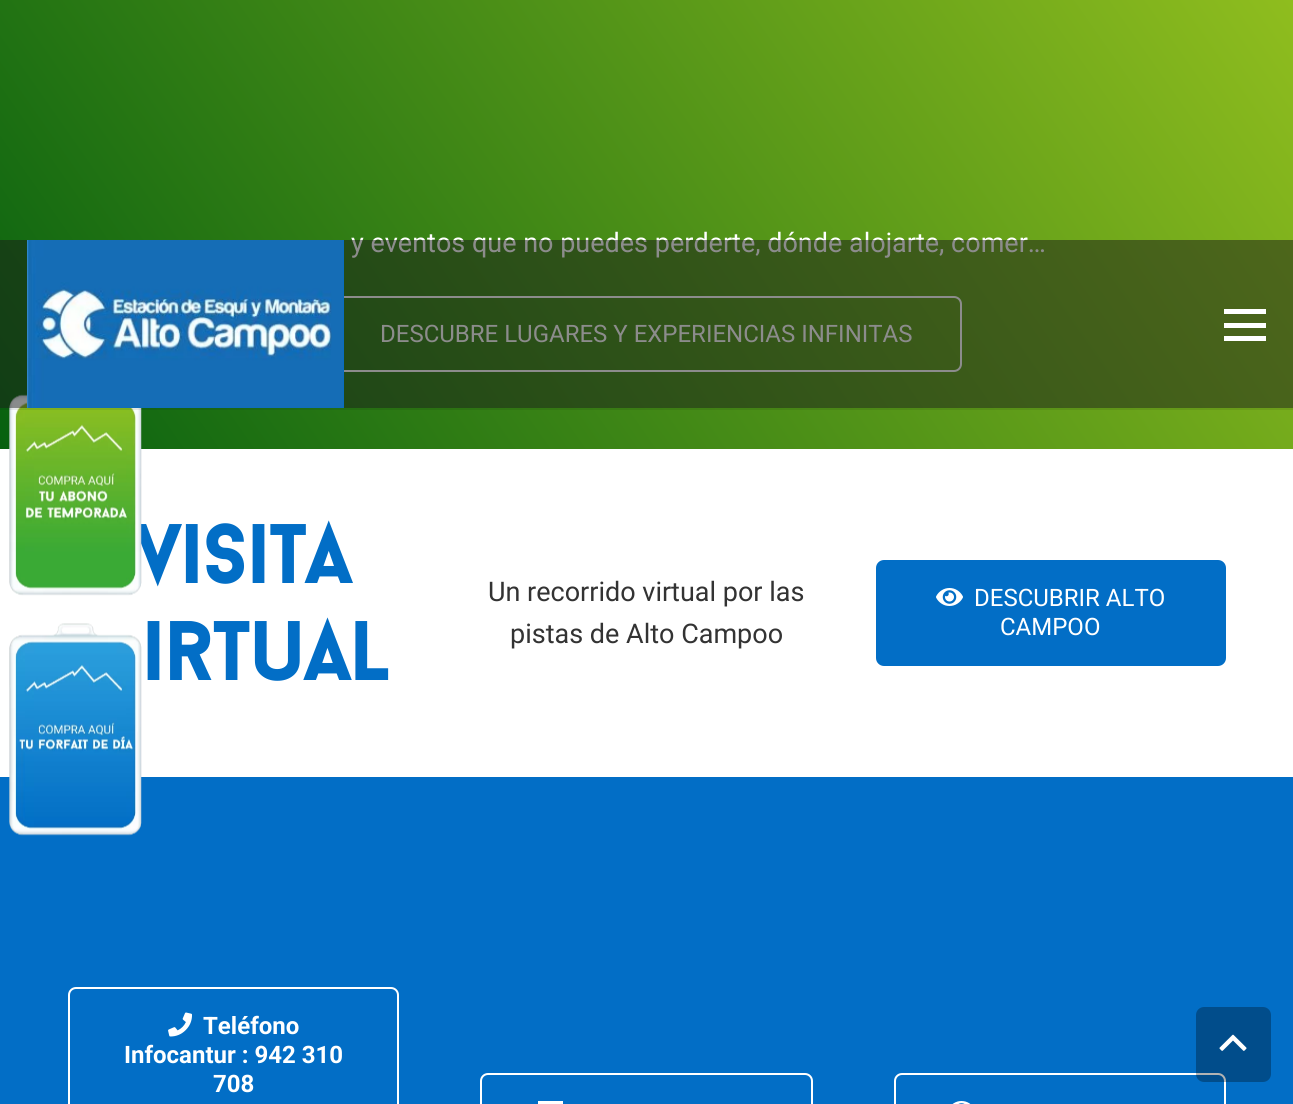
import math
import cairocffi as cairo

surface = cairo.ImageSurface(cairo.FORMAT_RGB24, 1293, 1104)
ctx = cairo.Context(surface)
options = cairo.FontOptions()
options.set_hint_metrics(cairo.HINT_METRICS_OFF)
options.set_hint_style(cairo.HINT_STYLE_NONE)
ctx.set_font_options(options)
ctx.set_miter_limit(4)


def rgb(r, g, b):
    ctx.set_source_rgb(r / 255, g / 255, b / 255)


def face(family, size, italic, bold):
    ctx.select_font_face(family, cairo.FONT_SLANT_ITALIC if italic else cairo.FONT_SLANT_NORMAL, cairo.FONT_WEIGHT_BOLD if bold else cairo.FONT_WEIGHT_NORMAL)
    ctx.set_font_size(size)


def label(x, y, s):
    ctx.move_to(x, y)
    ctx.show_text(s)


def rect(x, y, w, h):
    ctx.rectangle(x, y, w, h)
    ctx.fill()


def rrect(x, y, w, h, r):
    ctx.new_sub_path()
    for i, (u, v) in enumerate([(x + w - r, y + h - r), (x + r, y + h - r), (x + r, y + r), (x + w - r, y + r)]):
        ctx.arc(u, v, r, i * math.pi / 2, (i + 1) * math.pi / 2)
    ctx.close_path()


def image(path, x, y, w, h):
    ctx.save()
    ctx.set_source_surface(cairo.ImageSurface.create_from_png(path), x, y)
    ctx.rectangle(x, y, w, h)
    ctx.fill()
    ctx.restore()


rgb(255, 255, 255)
ctx.paint()
gradient = cairo.LinearGradient(1209, -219, 84, 569)
gradient.add_color_stop_rgba(0, 0.584, 0.757, 0.122, 1)
gradient.add_color_stop_rgba(1, 0.027, 0.38, 0.063, 1)
ctx.set_source(gradient)
rect(0, 0, 1293, 449)
face('Roboto', 27, 0, 0)
rgb(255, 255, 255)
label(351, 252, 'y eventos que no puedes perderte, dónde alojarte, comer…')
rrect(333, 297, 628, 74, 7)
ctx.stroke()
face('Roboto', 24, 0, 0)
label(380, 342, 'DESCUBRE LUGARES Y EXPERIENCIAS INFINITAS')
face('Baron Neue', 81, 0, 1)
rgb(2, 110, 198)
label(134, 583, 'visita')
image('image0.png', 9, 394, 133, 202)
rect(0, 777, 1293, 327)
image('image1.png', 9, 623, 133, 213)
label(141, 680, 'irtual')
face('Roboto', 27, 0, 0)
rgb(51, 51, 51)
label(488, 601, 'Un recorrido virtual por las')
label(510, 643, 'pistas de Alto Campoo')
rgb(2, 110, 198)
rrect(876, 560, 350, 106, 8)
ctx.fill()
image('image2.png', 936, 588, 27, 18)
face('Roboto', 24, 0, 0)
rgb(255, 255, 255)
label(974, 606, 'DESCUBRIR ALTO')
label(1000, 635, 'CAMPOO')
image('image3.png', 168, 1012, 24, 25)
rrect(69, 988, 329, 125, 7)
ctx.stroke()
face('Roboto', 24, 0, 1)
label(203, 1034, 'Teléfono')
label(124, 1063, 'Infocantur : 942 310')
label(213, 1092, '708')
rect(538, 1101, 25, 3)
rrect(481, 1074, 331, 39, 7)
ctx.stroke()
image('image4.png', 952, 1101, 19, 3)
rrect(895, 1074, 330, 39, 7)
ctx.stroke()
ctx.set_source_rgba(0, 0, 0, 0.08)
rect(0, 408, 1293, 2)
ctx.set_source_rgba(0.102, 0.102, 0.102, 0.5)
rect(0, 240, 1293, 168)
rgb(2, 110, 198)
rect(27, 240, 317, 168)
image('image5.png', 27, 240, 317, 168)
rgb(255, 255, 255)
rect(1224, 323, 42, 5)
rect(1224, 309, 42, 5)
rect(1224, 336, 42, 5)
ctx.set_source_rgba(0, 0, 0, 0.3)
rrect(1196, 1007, 75, 75, 8)
ctx.fill()
image('image6.png', 1219, 1034, 28, 17)
surface.write_to_png('render.png')
